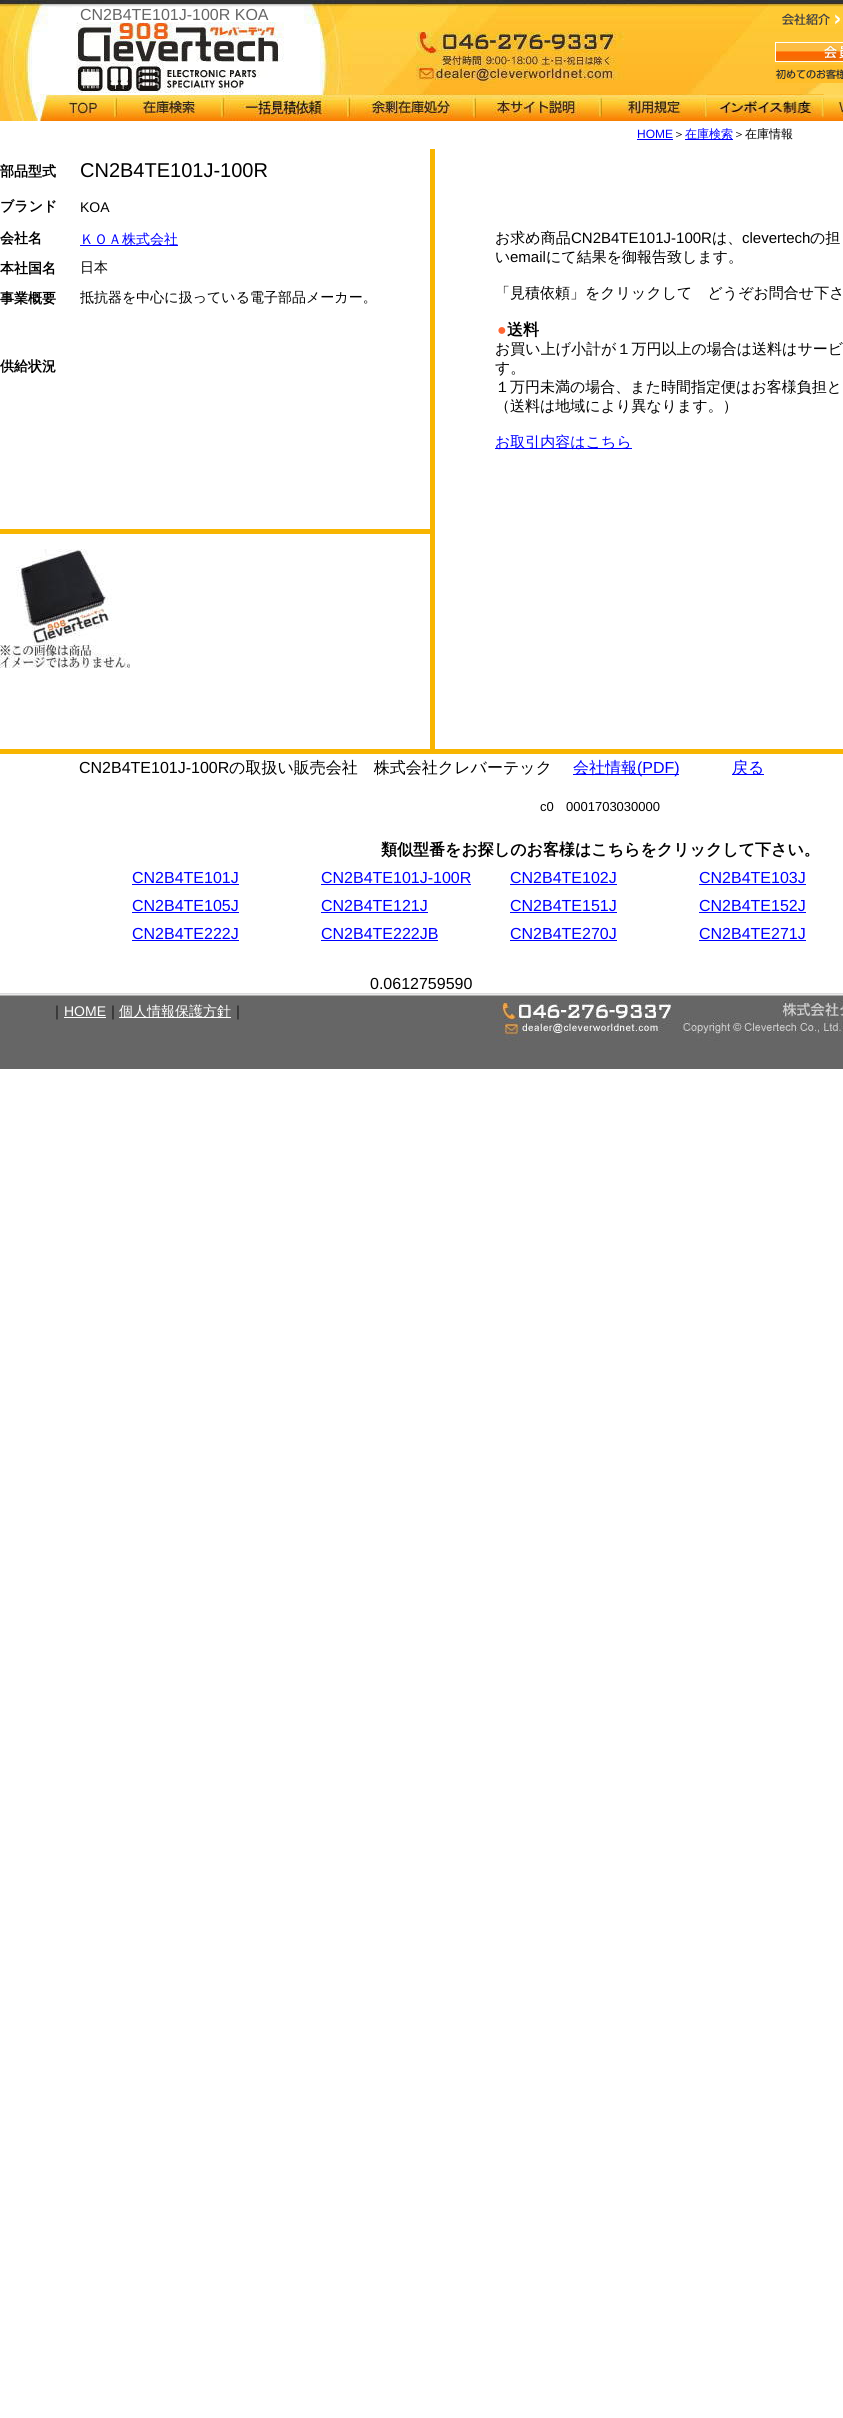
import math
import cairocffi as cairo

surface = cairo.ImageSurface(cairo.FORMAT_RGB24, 843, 2418)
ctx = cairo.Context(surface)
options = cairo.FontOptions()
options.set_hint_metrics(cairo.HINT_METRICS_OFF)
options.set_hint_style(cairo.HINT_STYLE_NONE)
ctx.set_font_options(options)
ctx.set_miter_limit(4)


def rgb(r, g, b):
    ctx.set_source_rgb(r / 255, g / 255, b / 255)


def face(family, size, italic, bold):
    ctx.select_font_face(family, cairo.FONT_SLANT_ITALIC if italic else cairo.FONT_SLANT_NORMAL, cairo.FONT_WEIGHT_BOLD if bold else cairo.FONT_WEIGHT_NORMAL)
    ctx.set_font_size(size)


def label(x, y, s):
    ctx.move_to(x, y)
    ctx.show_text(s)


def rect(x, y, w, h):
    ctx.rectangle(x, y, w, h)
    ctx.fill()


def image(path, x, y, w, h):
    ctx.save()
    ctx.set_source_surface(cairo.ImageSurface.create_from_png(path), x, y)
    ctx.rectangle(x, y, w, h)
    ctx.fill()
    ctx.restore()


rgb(255, 255, 255)
ctx.paint()
image('image0.png', 0, 0, 843, 94)
face('Liberation Sans', 16, 0, 0)
rgb(102, 102, 102)
label(80, 20, 'CN2B4TE101J-100R KOA')
image('image1.png', 782, 12, 60, 15)
image('image2.png', 76, 22, 208, 71)
image('image3.png', 775, 42, 68, 20)
image('image4.png', 775, 65, 68, 18)
image('image5.png', 0, 94, 40, 27)
image('image6.png', 40, 94, 76, 27)
image('image7.png', 116, 94, 107, 27)
image('image8.png', 223, 94, 126, 27)
image('image9.png', 349, 94, 127, 27)
image('image10.png', 476, 94, 126, 27)
image('image11.png', 602, 94, 105, 27)
image('image12.png', 707, 94, 117, 27)
image('image13.png', 824, 94, 19, 27)
face('Liberation Sans', 12, 0, 0)
rgb(0, 0, 255)
label(637, 138, 'HOME')
rect(637, 139, 36, 1)
face('WenQuanYi Zen Hei Medium', 12, 0, 0)
rgb(0, 0, 0)
label(673, 138, '＞')
rgb(0, 0, 255)
rect(685, 139, 48, 1)
label(685, 138, '在庫検索')
rgb(0, 0, 0)
label(733, 138, '＞在庫情報')
rgb(248, 181, 0)
rect(0, 749, 843, 5)
rect(430, 149, 5, 600)
face('WenQuanYi Zen Hei', 14, 0, 1)
rgb(0, 0, 0)
label(0, 176, '部品型式')
face('Liberation Sans', 20, 0, 0)
label(80, 177, 'CN2B4TE101J-100R')
face('WenQuanYi Zen Hei', 14, 0, 1)
label(0, 211, 'ブランド')
face('Liberation Sans', 14, 0, 0)
label(80, 212, 'KOA')
face('WenQuanYi Zen Hei', 14, 0, 1)
label(0, 243, '会社名')
rgb(0, 0, 255)
rect(80, 245, 98, 1)
face('WenQuanYi Zen Hei Medium', 14, 0, 0)
label(80, 244, 'ＫＯＡ株式会社')
face('WenQuanYi Zen Hei', 14, 0, 1)
rgb(0, 0, 0)
label(0, 273, '本社国名')
face('WenQuanYi Zen Hei Medium', 14, 0, 0)
label(80, 272, '日本')
face('WenQuanYi Zen Hei', 14, 0, 1)
label(0, 303, '事業概要')
face('WenQuanYi Zen Hei Medium', 14, 0, 0)
label(80, 302, '抵抗器を中心に扱っている電子部品メーカー。')
face('WenQuanYi Zen Hei', 14, 0, 1)
label(0, 371, '供給状況')
rgb(248, 181, 0)
rect(0, 529, 430, 5)
image('image14.png', 0, 549, 130, 119)
face('WenQuanYi Zen Hei Medium', 15, 0, 0)
rgb(0, 0, 0)
label(495, 243, 'お求め商品')
face('Liberation Sans', 15, 0, 0)
label(571, 243, 'CN2B4TE101J-100R')
face('WenQuanYi Zen Hei Medium', 15, 0, 0)
label(712, 243, 'は、')
face('Liberation Sans', 15, 0, 0)
label(742, 243, 'clevertech')
face('WenQuanYi Zen Hei Medium', 15, 0, 0)
label(810, 243, 'の担')
label(495, 262, 'い')
face('Liberation Sans', 15, 0, 0)
label(510, 262, 'email')
face('WenQuanYi Zen Hei Medium', 15, 0, 0)
label(546, 262, 'にて結果を御報告致します。')
label(495, 298, '「見積依頼」をクリックして　どうぞお問合せ下さ')
face('Liberation Sans', 16, 0, 1)
rgb(255, 102, 51)
label(497, 335, '●')
face('WenQuanYi Zen Hei', 16, 0, 1)
rgb(0, 0, 0)
label(507, 335, '送料')
face('WenQuanYi Zen Hei Medium', 15, 0, 0)
label(495, 354, 'お買い上げ小計が１万円以上の場合は送料はサービ')
label(495, 373, 'す。')
label(495, 392, '１万円未満の場合、また時間指定便はお客様負担と')
label(495, 411, '（送料は地域により異なります。）')
rgb(0, 0, 255)
rect(495, 448, 137, 1)
label(495, 447, 'お取引内容はこちら')
face('Liberation Sans', 16, 0, 0)
rgb(0, 0, 0)
label(79, 773, 'CN2B4TE101J-100R')
face('WenQuanYi Zen Hei Medium', 16, 0, 0)
label(229, 773, 'の取扱い販売会社　株式会社クレバーテック')
rgb(0, 0, 255)
rect(573, 774, 106, 1)
label(573, 773, '会社情報')
face('Liberation Sans', 16, 0, 0)
label(637, 773, '(PDF)')
rect(732, 774, 32, 1)
face('WenQuanYi Zen Hei Medium', 16, 0, 0)
label(732, 773, '戻る')
face('Liberation Sans', 13, 0, 0)
rgb(0, 0, 0)
label(540, 811, 'c0')
label(566, 811, '0001703030000')
face('WenQuanYi Zen Hei', 16, 0, 1)
label(381, 855, '類似型番をお探しのお客様はこちらをクリックして下さい。')
face('Liberation Sans', 16, 0, 0)
rgb(0, 0, 255)
label(132, 883, 'CN2B4TE101J')
rect(132, 884, 107, 1)
label(321, 883, 'CN2B4TE101J-100R')
rect(321, 884, 150, 1)
label(510, 883, 'CN2B4TE102J')
rect(510, 884, 107, 1)
label(699, 883, 'CN2B4TE103J')
rect(699, 884, 107, 1)
label(132, 911, 'CN2B4TE105J')
rect(132, 912, 107, 1)
label(321, 911, 'CN2B4TE121J')
rect(321, 912, 107, 1)
label(510, 911, 'CN2B4TE151J')
rect(510, 912, 107, 1)
label(699, 911, 'CN2B4TE152J')
rect(699, 912, 107, 1)
label(132, 939, 'CN2B4TE222J')
rect(132, 940, 107, 1)
label(321, 939, 'CN2B4TE222JB')
rect(321, 940, 117, 1)
label(510, 939, 'CN2B4TE270J')
rect(510, 940, 107, 1)
label(699, 939, 'CN2B4TE271J')
rect(699, 940, 107, 1)
rgb(0, 0, 0)
label(370, 989, '0.0612759590')
image('image15.png', 0, 993, 843, 56)
image('image16.png', 495, 1001, 348, 40)
face('WenQuanYi Zen Hei Medium', 14, 0, 0)
label(50, 1016, '｜')
face('Liberation Sans', 14, 0, 0)
rgb(255, 255, 255)
label(64, 1016, 'HOME')
rect(64, 1017, 42, 1)
face('WenQuanYi Zen Hei Medium', 14, 0, 0)
rgb(0, 0, 0)
label(106, 1016, '｜')
rgb(255, 255, 255)
rect(119, 1017, 112, 1)
label(119, 1016, '個人情報保護方針')
rgb(0, 0, 0)
label(231, 1016, '｜')
image('image17.png', 780, 1000, 63, 20)
rgb(102, 102, 102)
rect(0, 1049, 843, 20)
surface.write_to_png('render.png')
